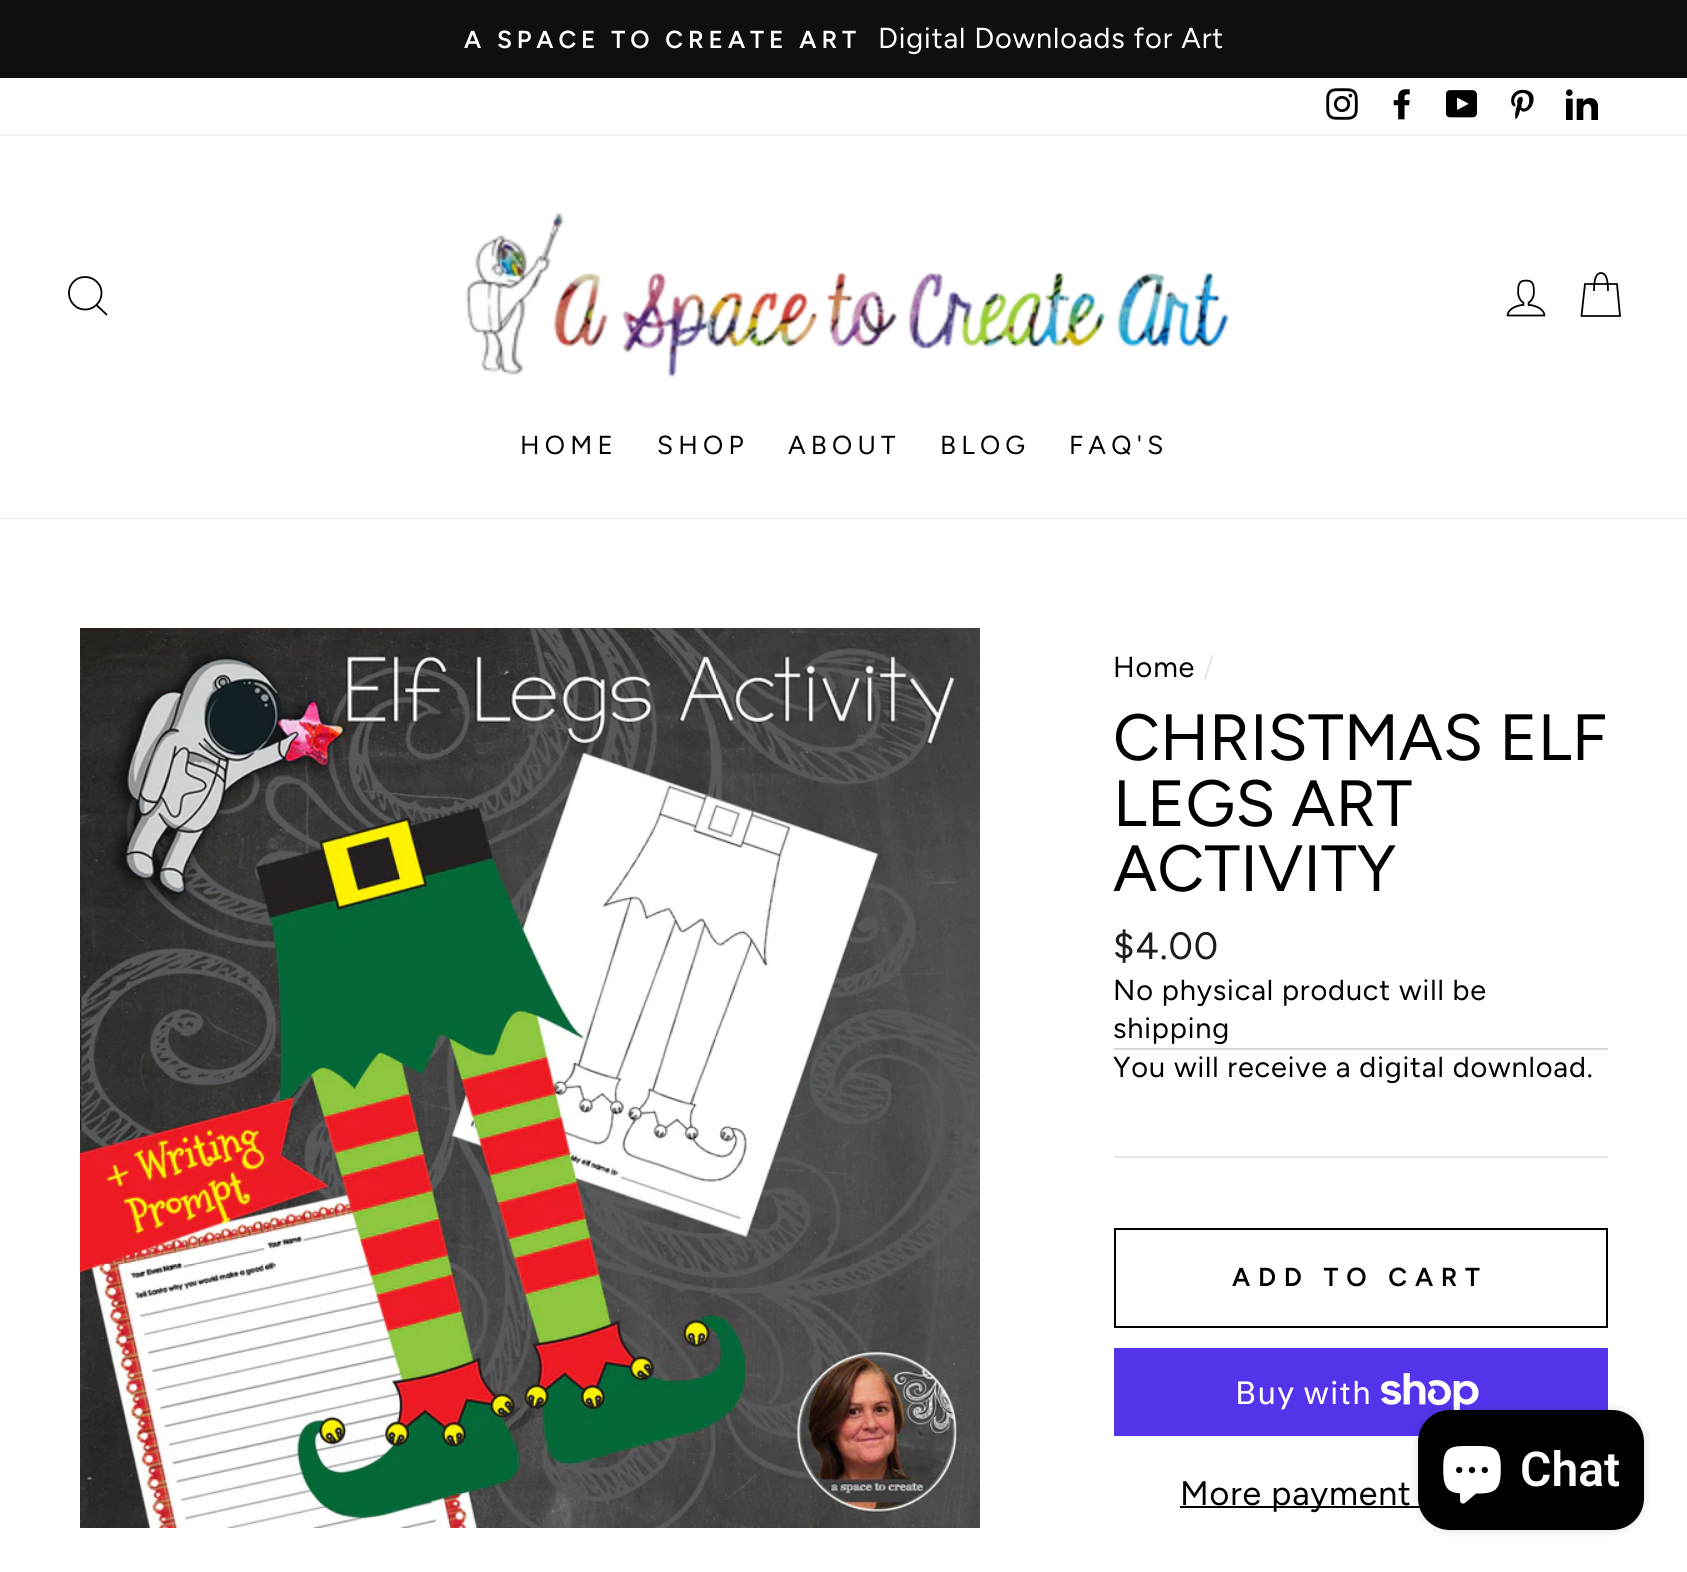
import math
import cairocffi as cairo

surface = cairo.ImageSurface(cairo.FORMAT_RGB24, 1687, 1572)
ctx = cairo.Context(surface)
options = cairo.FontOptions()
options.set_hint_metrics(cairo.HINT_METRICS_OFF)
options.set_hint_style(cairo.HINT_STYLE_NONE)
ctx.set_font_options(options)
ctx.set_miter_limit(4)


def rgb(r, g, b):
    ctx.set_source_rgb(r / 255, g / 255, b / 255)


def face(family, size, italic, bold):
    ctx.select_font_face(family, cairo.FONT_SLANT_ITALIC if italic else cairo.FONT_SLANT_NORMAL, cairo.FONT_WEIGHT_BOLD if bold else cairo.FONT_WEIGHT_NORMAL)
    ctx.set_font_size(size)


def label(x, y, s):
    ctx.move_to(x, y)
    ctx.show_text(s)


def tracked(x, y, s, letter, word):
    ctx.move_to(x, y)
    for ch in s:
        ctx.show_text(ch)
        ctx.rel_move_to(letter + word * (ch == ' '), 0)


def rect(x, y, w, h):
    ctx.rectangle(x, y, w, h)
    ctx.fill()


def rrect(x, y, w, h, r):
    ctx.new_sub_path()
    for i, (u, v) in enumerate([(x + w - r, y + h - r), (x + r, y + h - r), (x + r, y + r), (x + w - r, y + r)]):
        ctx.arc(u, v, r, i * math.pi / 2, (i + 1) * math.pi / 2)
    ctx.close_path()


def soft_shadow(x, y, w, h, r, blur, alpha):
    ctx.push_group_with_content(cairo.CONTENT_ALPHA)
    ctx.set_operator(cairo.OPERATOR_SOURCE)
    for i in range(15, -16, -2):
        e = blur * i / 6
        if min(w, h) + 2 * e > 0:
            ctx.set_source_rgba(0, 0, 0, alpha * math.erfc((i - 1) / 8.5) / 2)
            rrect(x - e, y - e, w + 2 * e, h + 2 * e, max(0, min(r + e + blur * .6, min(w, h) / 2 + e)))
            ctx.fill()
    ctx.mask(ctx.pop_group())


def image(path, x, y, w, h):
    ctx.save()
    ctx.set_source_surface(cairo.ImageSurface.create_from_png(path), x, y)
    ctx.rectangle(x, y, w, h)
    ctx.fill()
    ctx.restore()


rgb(255, 255, 255)
ctx.paint()
rgb(15, 15, 15)
rect(0, 0, 1687, 78)
face('Figtree SemiBold', 24.6, 0, 0)
rgb(255, 255, 255)
tracked(464, 48, 'A SPACE TO CREATE ART', 4.9, 0)
face('Figtree', 28.9, 0, 0)
tracked(878, 48, 'Digital Downloads for Art', 0.85, 0)
image('image0.png', 1326, 88, 32, 32)
image('image1.png', 1393, 89, 17, 31)
image('image2.png', 1446, 90, 31, 28)
image('image3.png', 1511, 89, 23, 31)
image('image4.png', 1566, 89, 32, 31)
ctx.save()
ctx.set_fill_rule(cairo.FILL_RULE_EVEN_ODD)
ctx.new_path()
ctx.move_to(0, 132)
ctx.line_to(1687, 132)
ctx.line_to(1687, 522)
ctx.line_to(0, 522)
ctx.close_path()
ctx.move_to(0, 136)
ctx.line_to(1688, 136)
ctx.line_to(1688, 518)
ctx.line_to(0, 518)
ctx.close_path()
ctx.clip()
rgb(0, 0, 0)
soft_shadow(0, 136, 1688, 382, 0, 1, 0.2)
ctx.restore()
ctx.new_path()
ctx.move_to(101.5, 293)
ctx.curve_to(101.5, 302, 94, 309.5, 85, 309.5)
ctx.curve_to(76, 309.5, 69, 302, 69, 293)
ctx.curve_to(69, 284, 76, 277, 85, 277)
ctx.curve_to(94, 277, 101.5, 284, 101.5, 293)
ctx.close_path()
ctx.move_to(107, 315)
ctx.line_to(96.5, 305)
rgb(0, 0, 0)
ctx.set_line_width(1.8)
ctx.stroke()
image('image5.png', 465, 212, 764, 165)
image('image6.png', 1506, 279, 40, 38)
ctx.new_path()
ctx.move_to(1594, 291)
ctx.curve_to(1594, 277, 1597, 273, 1601, 273)
ctx.curve_to(1605, 273, 1608, 277, 1608, 291)
ctx.move_to(1585, 284)
ctx.line_to(1617, 284)
ctx.line_to(1620, 316)
ctx.line_to(1581.5, 316)
ctx.close_path()
ctx.stroke()
face('Figtree', 26, 0, 0)
tracked(520, 454, 'HOME', 5.25, 0)
tracked(657, 454, 'SHOP', 5.25, 0)
tracked(788, 454, 'ABOUT', 5.25, 0)
tracked(940, 454, 'BLOG', 5.25, 0)
tracked(1069, 454, 'FAQ\'S', 5.25, 0)
image('image7.png', 80, 628, 900, 900)
face('Figtree', 28.9, 0, 0)
tracked(1113, 677, 'Home', 0.85, 0)
rgb(232, 232, 225)
tracked(1203, 677, '/', 0.85, 0)
face('Figtree', 65.25, 0, 0)
rgb(0, 0, 0)
label(1113, 760, 'CHRISTMAS ELF')
label(1113, 826, 'LEGS ART')
label(1113, 891, 'ACTIVITY')
face('Figtree', 38, 0, 0)
rgb(28, 29, 29)
tracked(1113, 959, '$4.00', 0.85, 0)
rgb(217, 217, 217)
rect(1114, 1048, 494, 2)
face('Figtree', 28.9, 0, 0)
rgb(0, 0, 0)
tracked(1113, 1000, 'No physical product will be', 0.85, 0)
tracked(1113, 1038, 'shipping', 0.85, 0)
tracked(1113, 1077, 'You will receive a digital download.', 0.85, 0)
rgb(232, 232, 225)
rect(1114, 1156, 494, 2)
ctx.rectangle(1115, 1229, 492, 98)
rgb(0, 0, 0)
ctx.set_line_width(2)
ctx.stroke()
face('Figtree SemiBold', 26, 0, 0)
tracked(1232, 1286, 'ADD TO CART', 7.75, 0)
rgb(84, 51, 235)
rect(1114, 1348, 494, 88)
face('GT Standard', 32, 0, 0)
rgb(255, 255, 255)
tracked(1235, 1404, 'Buy with', 0.85, 0)
image('image8.png', 1381, 1373, 98, 37)
rgb(0, 0, 0)
rect(1180, 1506, 240, 2)
face('Figtree', 34, 0, 0)
tracked(1180, 1505, 'More payment', 0.85, 0)
rgb(0, 0, 0)
soft_shadow(1418, 1410, 226, 120, 32, 5, 0.15)
rgb(0, 0, 0)
rrect(1418, 1410, 226, 120, 32)
ctx.fill()
image('image9.png', 1443, 1446, 58, 58)
face('Roboto SemiBold', 48, 0, 0)
rgb(255, 255, 255)
label(1520, 1486, 'Chat')
surface.write_to_png('render.png')
